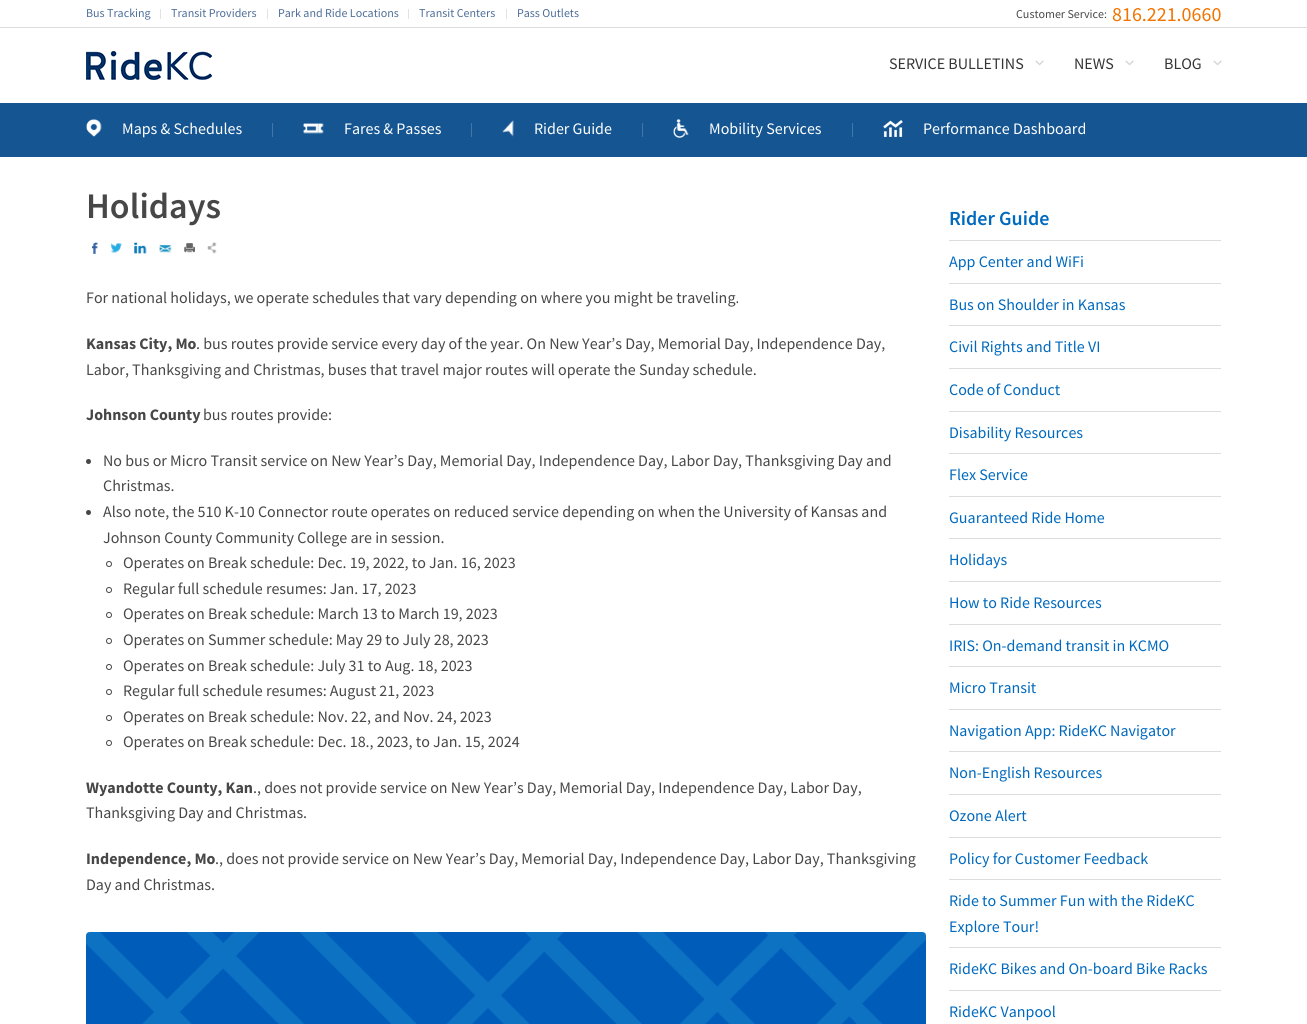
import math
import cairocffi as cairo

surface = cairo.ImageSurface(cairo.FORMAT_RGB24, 1307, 1024)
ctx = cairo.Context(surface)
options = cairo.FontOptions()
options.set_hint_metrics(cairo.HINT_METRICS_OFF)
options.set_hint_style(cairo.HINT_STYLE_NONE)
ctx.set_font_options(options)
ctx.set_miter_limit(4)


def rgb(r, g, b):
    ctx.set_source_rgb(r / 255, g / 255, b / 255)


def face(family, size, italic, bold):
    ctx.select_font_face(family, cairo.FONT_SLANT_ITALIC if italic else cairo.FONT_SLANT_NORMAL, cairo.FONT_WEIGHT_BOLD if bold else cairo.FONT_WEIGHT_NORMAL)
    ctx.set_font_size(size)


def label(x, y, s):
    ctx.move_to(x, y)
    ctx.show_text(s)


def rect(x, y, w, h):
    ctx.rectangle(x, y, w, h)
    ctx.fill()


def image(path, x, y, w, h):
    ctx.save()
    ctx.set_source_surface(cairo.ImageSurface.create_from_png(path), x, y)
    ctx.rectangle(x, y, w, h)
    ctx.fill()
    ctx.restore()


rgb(255, 255, 255)
ctx.paint()
rgb(220, 220, 220)
rect(0, 27, 1307, 1)
face('Source Sans Pro', 12, 0, 0)
rgb(77, 109, 153)
label(86, 17, 'Bus Tracking')
rgb(227, 227, 227)
rect(160, 9, 1, 10)
rgb(77, 109, 153)
label(171, 17, 'Transit Providers')
rgb(227, 227, 227)
rect(267, 9, 1, 10)
rgb(77, 109, 153)
label(278, 17, 'Park and Ride Locations')
rgb(227, 227, 227)
rect(408, 9, 1, 10)
rgb(77, 109, 153)
label(419, 17, 'Transit Centers')
rgb(227, 227, 227)
rect(506, 9, 1, 10)
rgb(77, 109, 153)
label(517, 17, 'Pass Outlets')
rgb(71, 71, 71)
label(1016, 18, 'Customer Service:')
face('Source Sans Pro', 20, 0, 0)
rgb(241, 116, 0)
label(1112, 21, '816.221.0660')
image('image0.png', 86, 51, 126, 29)
face('Source Sans Pro', 16, 0, 0)
rgb(53, 53, 53)
label(889, 69, 'SERVICE BULLETINS')
image('image1.png', 1035, 60, 9, 6)
label(1074, 69, 'NEWS')
image('image1.png', 1125, 60, 9, 6)
label(1164, 69, 'BLOG')
image('image1.png', 1213, 60, 9, 6)
rgb(20, 85, 146)
rect(0, 103, 1307, 54)
image('image2.png', 86, 119, 16, 18)
rgb(255, 255, 255)
label(122, 134, 'Maps & Schedules')
rgb(67, 119, 168)
rect(272, 123, 1, 14)
image('image3.png', 303, 123, 21, 11)
rgb(255, 255, 255)
label(344, 134, 'Fares & Passes')
rgb(67, 119, 168)
rect(471, 123, 1, 14)
image('image4.png', 502, 120, 12, 17)
rgb(255, 255, 255)
label(534, 134, 'Rider Guide')
rgb(67, 119, 168)
rect(642, 123, 1, 14)
image('image5.png', 673, 119, 16, 19)
rgb(255, 255, 255)
label(709, 134, 'Mobility Services')
rgb(67, 119, 168)
rect(852, 123, 1, 14)
image('image6.png', 883, 120, 20, 17)
rgb(255, 255, 255)
label(923, 134, 'Performance Dashboard')
face('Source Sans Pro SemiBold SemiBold', 36, 0, 0)
rgb(71, 71, 71)
label(86, 218, 'Holidays')
image('image7.png', 92, 242, 6, 12)
image('image8.png', 110, 243, 12, 10)
image('image9.png', 134, 242, 13, 12)
image('image10.png', 159, 244, 13, 9)
image('image11.png', 184, 243, 11, 10)
image('image12.png', 207, 242, 10, 12)
face('Source Sans Pro', 16, 0, 0)
label(86, 303, 'For national holidays, we operate schedules that vary depending on where you might be traveling.')
face('Source Sans Pro', 16, 0, 1)
label(86, 349, 'Kansas City, Mo')
face('Source Sans Pro', 16, 0, 0)
label(196, 349, '. bus routes provide service every day of the year. On New Year’s Day, Memorial Day, Independence Day,')
label(86, 375, 'Labor, Thanksgiving and Christmas, buses that travel major routes will operate the Sunday schedule.')
face('Source Sans Pro', 16, 0, 1)
label(86, 420, 'Johnson County')
face('Source Sans Pro', 16, 0, 0)
label(203, 420, 'bus routes provide:')
ctx.new_path()
ctx.arc(88.5, 461.5, 2.5, 0, 2 * math.pi)
ctx.fill()
label(103, 466, 'No bus or Micro Transit service on New Year’s Day, Memorial Day, Independence Day, Labor Day, Thanksgiving Day and')
label(103, 491, 'Christmas.')
ctx.new_path()
ctx.arc(88.5, 512.5, 2.5, 0, 2 * math.pi)
ctx.fill()
label(103, 517, 'Also note, the 510 K-10 Connector route operates on reduced service depending on when the University of Kansas and')
label(103, 543, 'Johnson County Community College are in session.')
ctx.new_path()
ctx.arc(109, 564, 2.5, 0, 2 * math.pi)
ctx.set_line_width(1)
ctx.stroke()
label(123, 568, 'Operates on Break schedule: Dec. 19, 2022, to Jan. 16, 2023')
ctx.new_path()
ctx.arc(109, 590, 2.5, 0, 2 * math.pi)
ctx.stroke()
label(123, 594, 'Regular full schedule resumes: Jan. 17, 2023')
ctx.new_path()
ctx.arc(109, 615, 2.5, 0, 2 * math.pi)
ctx.stroke()
label(123, 619, 'Operates on Break schedule: March 13 to March 19, 2023')
ctx.new_path()
ctx.arc(109, 641, 2.5, 0, 2 * math.pi)
ctx.stroke()
label(123, 645, 'Operates on Summer schedule: May 29 to July 28, 2023')
ctx.new_path()
ctx.arc(109, 667, 2.5, 0, 2 * math.pi)
ctx.stroke()
label(123, 671, 'Operates on Break schedule: July 31 to Aug. 18, 2023')
ctx.new_path()
ctx.arc(109, 692, 2.5, 0, 2 * math.pi)
ctx.stroke()
label(123, 696, 'Regular full schedule resumes: August 21, 2023')
ctx.new_path()
ctx.arc(109, 718, 2.5, 0, 2 * math.pi)
ctx.stroke()
label(123, 722, 'Operates on Break schedule: Nov. 22, and Nov. 24, 2023')
ctx.new_path()
ctx.arc(109, 743, 2.5, 0, 2 * math.pi)
ctx.stroke()
label(123, 747, 'Operates on Break schedule: Dec. 18., 2023, to Jan. 15, 2024')
face('Source Sans Pro', 16, 0, 1)
label(86, 793, 'Wyandotte County, Kan')
face('Source Sans Pro', 16, 0, 0)
label(253, 793, '., does not provide service on New Year’s Day, Memorial Day, Independence Day, Labor Day,')
label(86, 818, 'Thanksgiving Day and Christmas.')
face('Source Sans Pro', 16, 0, 1)
label(86, 864, 'Independence, Mo')
face('Source Sans Pro', 16, 0, 0)
label(215, 864, '., does not provide service on New Year’s Day, Memorial Day, Independence Day, Labor Day, Thanksgiving')
label(86, 890, 'Day and Christmas.')
image('image13.png', 86, 932, 840, 92)
face('Source Sans Pro SemiBold SemiBold', 20, 0, 0)
rgb(0, 105, 190)
label(949, 225, 'Rider Guide')
rgb(220, 220, 220)
rect(949, 240, 272, 1)
face('Source Sans Pro', 16, 0, 0)
rgb(0, 105, 190)
label(949, 267, 'App Center and WiFi')
rgb(220, 220, 220)
rect(949, 283, 272, 1)
rgb(0, 105, 190)
label(949, 310, 'Bus on Shoulder in Kansas')
rgb(220, 220, 220)
rect(949, 325, 272, 1)
rgb(0, 105, 190)
label(949, 352, 'Civil Rights and Title VI')
rgb(220, 220, 220)
rect(949, 368, 272, 1)
rgb(0, 105, 190)
label(949, 395, 'Code of Conduct')
rgb(220, 220, 220)
rect(949, 411, 272, 1)
rgb(0, 105, 190)
label(949, 438, 'Disability Resources')
rgb(220, 220, 220)
rect(949, 453, 272, 1)
rgb(0, 105, 190)
label(949, 480, 'Flex Service')
rgb(220, 220, 220)
rect(949, 496, 272, 1)
rgb(0, 105, 190)
label(949, 523, 'Guaranteed Ride Home')
rgb(220, 220, 220)
rect(949, 538, 272, 1)
rgb(0, 105, 190)
label(949, 565, 'Holidays')
rgb(220, 220, 220)
rect(949, 581, 272, 1)
rgb(0, 105, 190)
label(949, 608, 'How to Ride Resources')
rgb(220, 220, 220)
rect(949, 624, 272, 1)
rgb(0, 105, 190)
label(949, 651, 'IRIS: On-demand transit in KCMO')
rgb(220, 220, 220)
rect(949, 666, 272, 1)
rgb(0, 105, 190)
label(949, 693, 'Micro Transit')
rgb(220, 220, 220)
rect(949, 709, 272, 1)
rgb(0, 105, 190)
label(949, 736, 'Navigation App: RideKC Navigator')
rgb(220, 220, 220)
rect(949, 751, 272, 1)
rgb(0, 105, 190)
label(949, 778, 'Non-English Resources')
rgb(220, 220, 220)
rect(949, 794, 272, 1)
rgb(0, 105, 190)
label(949, 821, 'Ozone Alert')
rgb(220, 220, 220)
rect(949, 837, 272, 1)
rgb(0, 105, 190)
label(949, 864, 'Policy for Customer Feedback')
rgb(220, 220, 220)
rect(949, 879, 272, 1)
rgb(0, 105, 190)
label(949, 906, 'Ride to Summer Fun with the RideKC')
label(949, 932, 'Explore Tour!')
rgb(220, 220, 220)
rect(949, 947, 272, 1)
rgb(0, 105, 190)
label(949, 974, 'RideKC Bikes and On-board Bike Racks')
rgb(220, 220, 220)
rect(949, 990, 272, 1)
rgb(0, 105, 190)
label(949, 1017, 'RideKC Vanpool')
surface.write_to_png('render.png')
